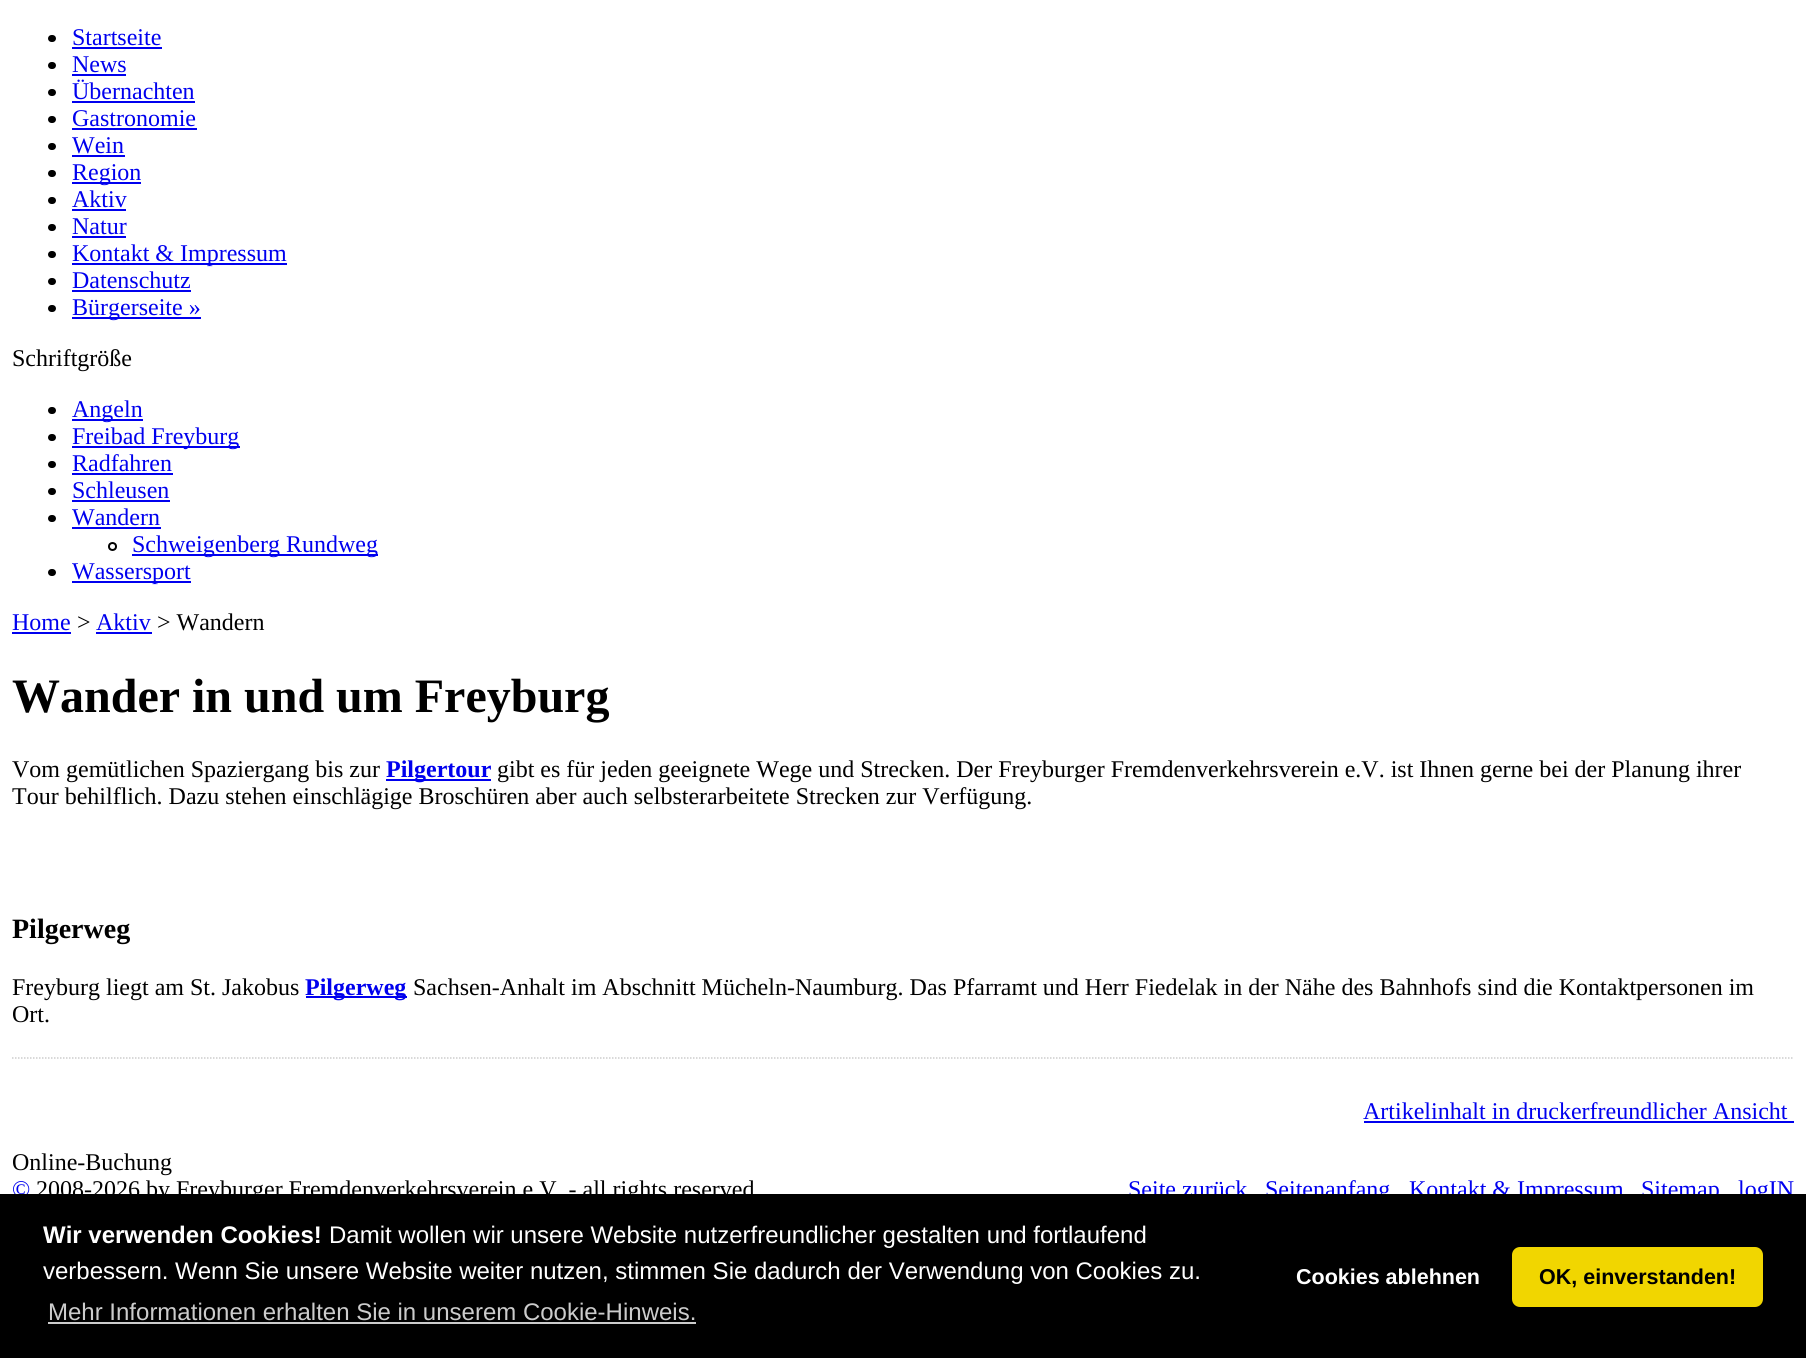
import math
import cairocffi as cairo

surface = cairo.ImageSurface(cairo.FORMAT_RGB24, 1806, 1358)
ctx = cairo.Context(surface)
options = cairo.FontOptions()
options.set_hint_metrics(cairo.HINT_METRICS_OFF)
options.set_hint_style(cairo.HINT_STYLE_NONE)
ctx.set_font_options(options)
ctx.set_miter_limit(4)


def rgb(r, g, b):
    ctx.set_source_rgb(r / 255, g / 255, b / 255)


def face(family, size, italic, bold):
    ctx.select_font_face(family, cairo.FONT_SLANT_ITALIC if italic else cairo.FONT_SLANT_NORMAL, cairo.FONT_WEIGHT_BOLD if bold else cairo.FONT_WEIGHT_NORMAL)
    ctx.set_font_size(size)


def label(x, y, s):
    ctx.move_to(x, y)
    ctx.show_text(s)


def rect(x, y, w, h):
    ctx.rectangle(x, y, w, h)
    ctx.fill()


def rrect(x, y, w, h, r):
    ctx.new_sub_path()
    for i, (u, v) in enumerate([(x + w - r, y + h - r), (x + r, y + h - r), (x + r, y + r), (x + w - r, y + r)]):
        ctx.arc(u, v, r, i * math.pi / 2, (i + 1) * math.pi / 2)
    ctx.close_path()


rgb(255, 255, 255)
ctx.paint()
rgb(0, 0, 0)
rrect(48, 35, 8, 7, 3.5)
ctx.fill()
face('Liberation Serif', 24, 0, 0)
rgb(0, 0, 238)
label(72, 45, 'Startseite')
rect(72, 47, 90, 2)
rgb(0, 0, 0)
rrect(48, 62, 8, 7, 3.5)
ctx.fill()
rgb(0, 0, 238)
label(72, 72, 'News')
rect(72, 74, 54, 2)
rgb(0, 0, 0)
rrect(48, 89, 8, 7, 3.5)
ctx.fill()
rgb(0, 0, 238)
label(72, 99, 'Übernachten')
rect(72, 101, 123, 2)
rgb(0, 0, 0)
rrect(48, 116, 8, 7, 3.5)
ctx.fill()
rgb(0, 0, 238)
label(72, 126, 'Gastronomie')
rect(72, 128, 125, 2)
rgb(0, 0, 0)
rrect(48, 143, 8, 7, 3.5)
ctx.fill()
rgb(0, 0, 238)
label(72, 153, 'Wein')
rect(72, 155, 53, 2)
rgb(0, 0, 0)
rrect(48, 170, 8, 7, 3.5)
ctx.fill()
rgb(0, 0, 238)
rect(72, 182, 69, 2)
label(72, 180, 'Region')
rgb(0, 0, 0)
rrect(48, 197, 8, 7, 3.5)
ctx.fill()
rgb(0, 0, 238)
label(72, 207, 'Aktiv')
rect(72, 209, 54, 2)
rgb(0, 0, 0)
rrect(48, 224, 8, 7, 3.5)
ctx.fill()
rgb(0, 0, 238)
label(72, 234, 'Natur')
rect(72, 236, 54, 2)
rgb(0, 0, 0)
rrect(48, 251, 8, 7, 3.5)
ctx.fill()
rgb(0, 0, 238)
rect(72, 263, 215, 2)
label(72, 261, 'Kontakt & Impressum')
rgb(0, 0, 0)
rrect(48, 278, 8, 7, 3.5)
ctx.fill()
rgb(0, 0, 238)
label(72, 288, 'Datenschutz')
rect(72, 290, 119, 2)
rgb(0, 0, 0)
rrect(48, 305, 8, 7, 3.5)
ctx.fill()
rgb(0, 0, 238)
rect(72, 317, 129, 2)
label(72, 315, 'Bürgerseite »')
rgb(0, 0, 0)
label(12, 366, 'Schriftgröße')
rrect(48, 407, 8, 7, 3.5)
ctx.fill()
rgb(0, 0, 238)
rect(72, 419, 71, 2)
label(72, 417, 'Angeln')
rgb(0, 0, 0)
rrect(48, 434, 8, 7, 3.5)
ctx.fill()
rgb(0, 0, 238)
rect(72, 446, 168, 2)
label(72, 444, 'Freibad Freyburg')
rgb(0, 0, 0)
rrect(48, 461, 8, 7, 3.5)
ctx.fill()
rgb(0, 0, 238)
label(72, 471, 'Radfahren')
rect(72, 473, 101, 2)
rgb(0, 0, 0)
rrect(48, 488, 8, 7, 3.5)
ctx.fill()
rgb(0, 0, 238)
label(72, 498, 'Schleusen')
rect(72, 500, 98, 2)
rgb(0, 0, 0)
rrect(48, 515, 8, 7, 3.5)
ctx.fill()
rgb(0, 0, 238)
label(72, 525, 'Wandern')
rect(72, 527, 89, 2)
ctx.new_path()
ctx.arc(112.5, 546.5, 3.5, 0, 2 * math.pi)
rgb(0, 0, 0)
ctx.stroke()
rgb(0, 0, 238)
rect(132, 554, 246, 2)
label(132, 552, 'Schweigenberg Rundweg')
rgb(0, 0, 0)
rrect(48, 569, 8, 7, 3.5)
ctx.fill()
rgb(0, 0, 238)
rect(72, 581, 119, 2)
label(72, 579, 'Wassersport')
label(12, 630, 'Home')
rect(12, 632, 59, 2)
rgb(0, 0, 0)
label(77, 630, '>')
rgb(0, 0, 238)
label(96, 630, 'Aktiv')
rect(96, 632, 56, 2)
rgb(0, 0, 0)
label(157, 630, '> Wandern')
face('Liberation Serif', 48, 0, 1)
label(12, 712, 'Wander in und um Freyburg')
face('Liberation Serif', 24, 0, 0)
label(12, 777, 'Vom gemütlichen Spaziergang bis zur')
rgb(0, 0, 238)
rect(386, 779, 105, 2)
face('Liberation Serif', 24, 0, 1)
label(386, 777, 'Pilgertour')
face('Liberation Serif', 24, 0, 0)
rgb(0, 0, 0)
label(497, 777, 'gibt es für jeden geeignete Wege und Strecken. Der Freyburger Fremdenverkehrsverein e.V. ist Ihnen gerne bei der Planung ihrer')
label(12, 804, 'Tour behilflich. Dazu stehen einschlägige Broschüren aber auch selbsterarbeitete Strecken zur Verfügung.')
face('Liberation Serif', 28, 0, 1)
label(12, 938, 'Pilgerweg')
face('Liberation Serif', 24, 0, 0)
label(12, 995, 'Freyburg liegt am St. Jakobus')
rgb(0, 0, 238)
rect(306, 996, 101, 2)
face('Liberation Serif', 24, 0, 1)
label(305, 995, 'Pilgerweg')
face('Liberation Serif', 24, 0, 0)
rgb(0, 0, 0)
label(413, 995, 'Sachsen-Anhalt im Abschnitt Mücheln-Naumburg. Das Pfarramt und Herr Fiedelak in der Nähe des Bahnhofs sind die Kontaktpersonen im')
label(12, 1022, 'Ort.')
ctx.new_path()
ctx.move_to(12, 1058)
ctx.line_to(1794, 1058)
rgb(204, 204, 204)
ctx.set_line_width(1.5)
ctx.set_dash([1.5, 1.5])
ctx.stroke()
rgb(0, 0, 238)
label(1363, 1119, 'Artikelinhalt in druckerfreundlicher Ansicht')
rect(1364, 1121, 430, 2)
rgb(0, 0, 0)
label(12, 1170, 'Online-Buchung')
rgb(0, 0, 238)
label(12, 1197, '©')
rgb(0, 0, 0)
label(36, 1197, '2008-2026 by Freyburger Fremdenverkehrsverein e.V. - all rights reserved')
rgb(0, 0, 238)
label(1128, 1197, 'Seite zurück')
label(1265, 1197, 'Seitenanfang')
label(1409, 1197, 'Kontakt & Impressum')
label(1641, 1197, 'Sitemap')
label(1738, 1197, 'logIN')
rgb(0, 0, 0)
rect(0, 1194, 1806, 164)
face('Liberation Sans', 24, 0, 1)
rgb(255, 255, 255)
label(43, 1243, 'Wir verwenden Cookies!')
face('Liberation Sans', 24, 0, 0)
label(329, 1243, 'Damit wollen wir unsere Website nutzerfreundlicher gestalten und fortlaufend')
label(43, 1279, 'verbessern. Wenn Sie unsere Website weiter nutzen, stimmen Sie dadurch der Verwendung von Cookies zu.')
rgb(204, 204, 204)
label(48, 1320, 'Mehr Informationen erhalten Sie in unserem Cookie-Hinweis.')
rect(48, 1322, 648, 2)
face('Liberation Sans', 21.5, 0, 1)
rgb(255, 255, 255)
label(1296, 1284, 'Cookies ablehnen')
rgb(241, 214, 0)
rrect(1512, 1247, 251, 60, 8)
ctx.fill()
rgb(0, 0, 0)
label(1539, 1284, 'OK, einverstanden!')
surface.write_to_png('render.png')
